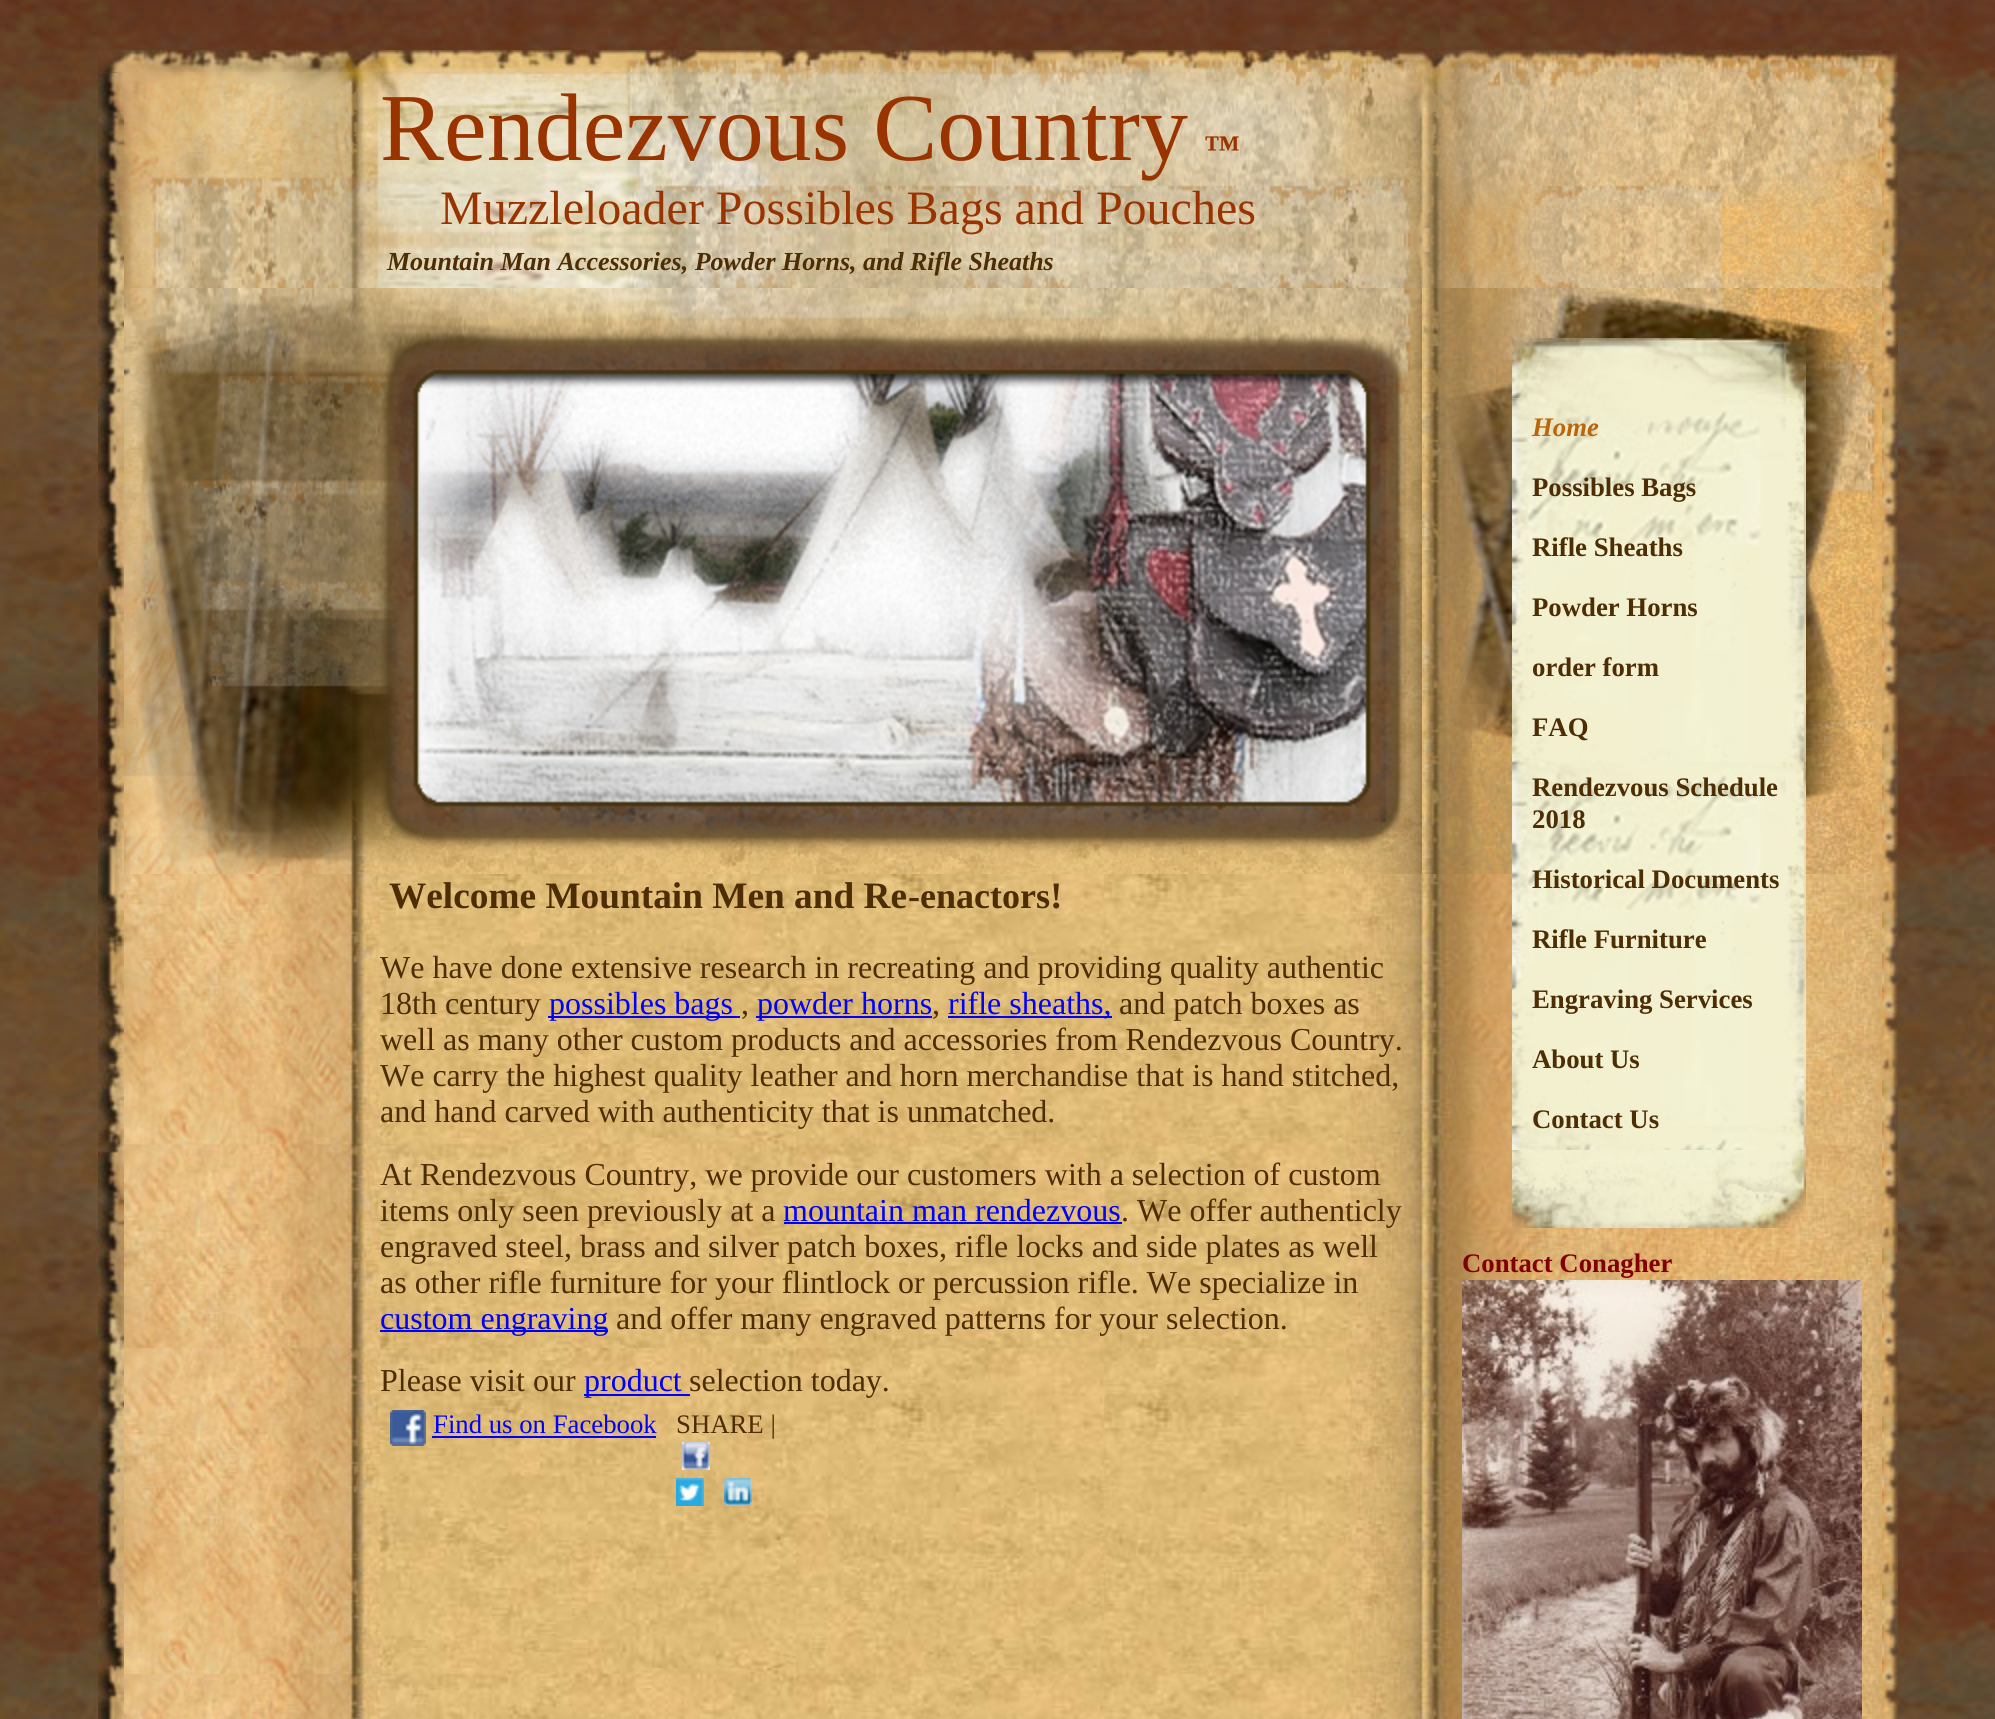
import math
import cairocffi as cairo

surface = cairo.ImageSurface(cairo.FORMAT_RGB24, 1995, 1719)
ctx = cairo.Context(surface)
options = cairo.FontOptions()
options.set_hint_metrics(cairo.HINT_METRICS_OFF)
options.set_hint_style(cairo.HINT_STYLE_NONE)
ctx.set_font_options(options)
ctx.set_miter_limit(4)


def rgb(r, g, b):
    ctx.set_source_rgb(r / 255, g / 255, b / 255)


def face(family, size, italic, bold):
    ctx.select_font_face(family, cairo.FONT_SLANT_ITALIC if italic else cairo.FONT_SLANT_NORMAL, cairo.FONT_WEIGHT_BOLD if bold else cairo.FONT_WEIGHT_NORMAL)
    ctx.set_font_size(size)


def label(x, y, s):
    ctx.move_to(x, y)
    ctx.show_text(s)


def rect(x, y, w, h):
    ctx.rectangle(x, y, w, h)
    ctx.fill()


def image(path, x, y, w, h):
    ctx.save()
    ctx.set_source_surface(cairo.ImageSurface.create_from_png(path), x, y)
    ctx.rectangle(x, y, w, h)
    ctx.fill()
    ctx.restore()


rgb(255, 255, 255)
ctx.paint()
image('image0.png', 0, 0, 1995, 1719)
image('image1.png', 98, 50, 26, 22)
image('image2.png', 124, 50, 1758, 22)
image('image3.png', 1882, 50, 16, 22)
image('image4.png', 98, 72, 26, 1647)
image('image5.png', 124, 72, 1758, 216)
face('Liberation Serif', 96, 0, 0)
rgb(153, 51, 0)
label(380, 160, 'Rendezvous Country')
face('Liberation Serif', 36, 0, 1)
label(1204, 160, '™')
face('Liberation Serif', 48, 0, 0)
label(440, 224, 'Muzzleloader Possibles Bags and Pouches')
face('Liberation Serif', 26, 1, 1)
rgb(77, 45, 3)
label(387, 270, 'Mountain Man Accessories, Powder Horns, and Rifle Sheaths')
image('image6.png', 124, 874, 1758, 845)
image('image7.png', 124, 288, 1298, 586)
face('Liberation Serif', 37.3, 0, 1)
label(389, 908, 'Welcome Mountain Men and Re')
face('Liberation Serif', 36, 0, 1)
label(908, 908, '-enactors')
face('Liberation Serif', 37.3, 0, 1)
label(1050, 908, '!')
face('Liberation Serif', 32, 0, 0)
label(380, 978, 'We have done extensive research in recreating and providing quality authentic')
label(380, 1014, '18th century')
rgb(0, 0, 255)
rect(548, 1016, 192, 2)
label(549, 1014, 'possibles bags')
rgb(77, 45, 3)
label(741, 1014, ',')
rgb(0, 0, 255)
rect(756, 1016, 176, 2)
label(757, 1014, 'powder horns')
rgb(77, 45, 3)
label(932, 1014, ',')
rgb(0, 0, 255)
rect(948, 1016, 164, 2)
label(948, 1014, 'rifle sheaths,')
rgb(77, 45, 3)
label(1119, 1014, 'and patch boxes as')
label(380, 1050, 'well as many other custom products and accessories from Rendezvous Country.')
label(380, 1086, 'We carry the highest quality leather and horn merchandise that is hand stitched,')
label(380, 1122, 'and hand carved with authenticity that is unmatched.')
label(380, 1185, 'At Rendezvous Country, we provide our customers with a selection of custom')
label(380, 1221, 'items only seen previously at a')
rgb(0, 0, 255)
label(783, 1221, 'mountain man rendezvous')
rgb(77, 45, 3)
label(1121, 1221, '. We offer authenticly')
rgb(0, 0, 255)
rect(784, 1222, 338, 2)
rgb(77, 45, 3)
label(380, 1257, 'engraved steel, brass and silver patch boxes, rifle locks and side plates as well')
label(380, 1293, 'as other rifle furniture for your flintlock or percussion rifle. We specialize in')
rgb(0, 0, 255)
rect(380, 1330, 228, 2)
label(380, 1329, 'custom engraving')
rgb(77, 45, 3)
label(616, 1329, 'and offer many engraved patterns for your selection.')
label(380, 1391, 'Please visit our')
rgb(0, 0, 255)
rect(584, 1394, 106, 2)
label(584, 1391, 'product')
rgb(77, 45, 3)
label(689, 1391, 'selection today.')
image('image8.png', 390, 1410, 36, 36)
face('Liberation Serif', 26.75, 0, 0)
rgb(0, 0, 255)
label(433, 1433, 'Find us on Facebook')
rect(432, 1436, 224, 2)
rgb(77, 45, 3)
label(676, 1433, 'SHARE |')
image('image9.png', 682, 1442, 28, 28)
image('image10.png', 676, 1478, 28, 28)
image('image11.png', 724, 1478, 28, 28)
image('image12.png', 1422, 288, 460, 586)
image('image13.png', 1512, 1150, 294, 78)
image('image14.png', 1512, 338, 294, 60)
image('image15.png', 1512, 398, 294, 752)
face('Liberation Serif', 26.75, 1, 1)
rgb(187, 102, 11)
label(1532, 436, 'Home')
face('Liberation Serif', 26.75, 0, 1)
rgb(77, 45, 3)
label(1532, 496, 'Possibles Bags')
label(1532, 556, 'Rifle Sheaths')
label(1532, 616, 'Powder Horns')
label(1532, 676, 'order form')
label(1532, 736, 'FAQ')
label(1532, 796, 'Rendezvous Schedule')
label(1532, 828, '2018')
label(1532, 888, 'Historical Documents')
label(1532, 948, 'Rifle Furniture')
label(1532, 1008, 'Engraving Services')
label(1532, 1068, 'About Us')
label(1532, 1128, 'Contact Us')
rgb(128, 0, 0)
label(1462, 1272, 'Contact Conagher')
image('image16.png', 1462, 1280, 400, 439)
image('image17.png', 1882, 72, 16, 1647)
surface.write_to_png('render.png')
